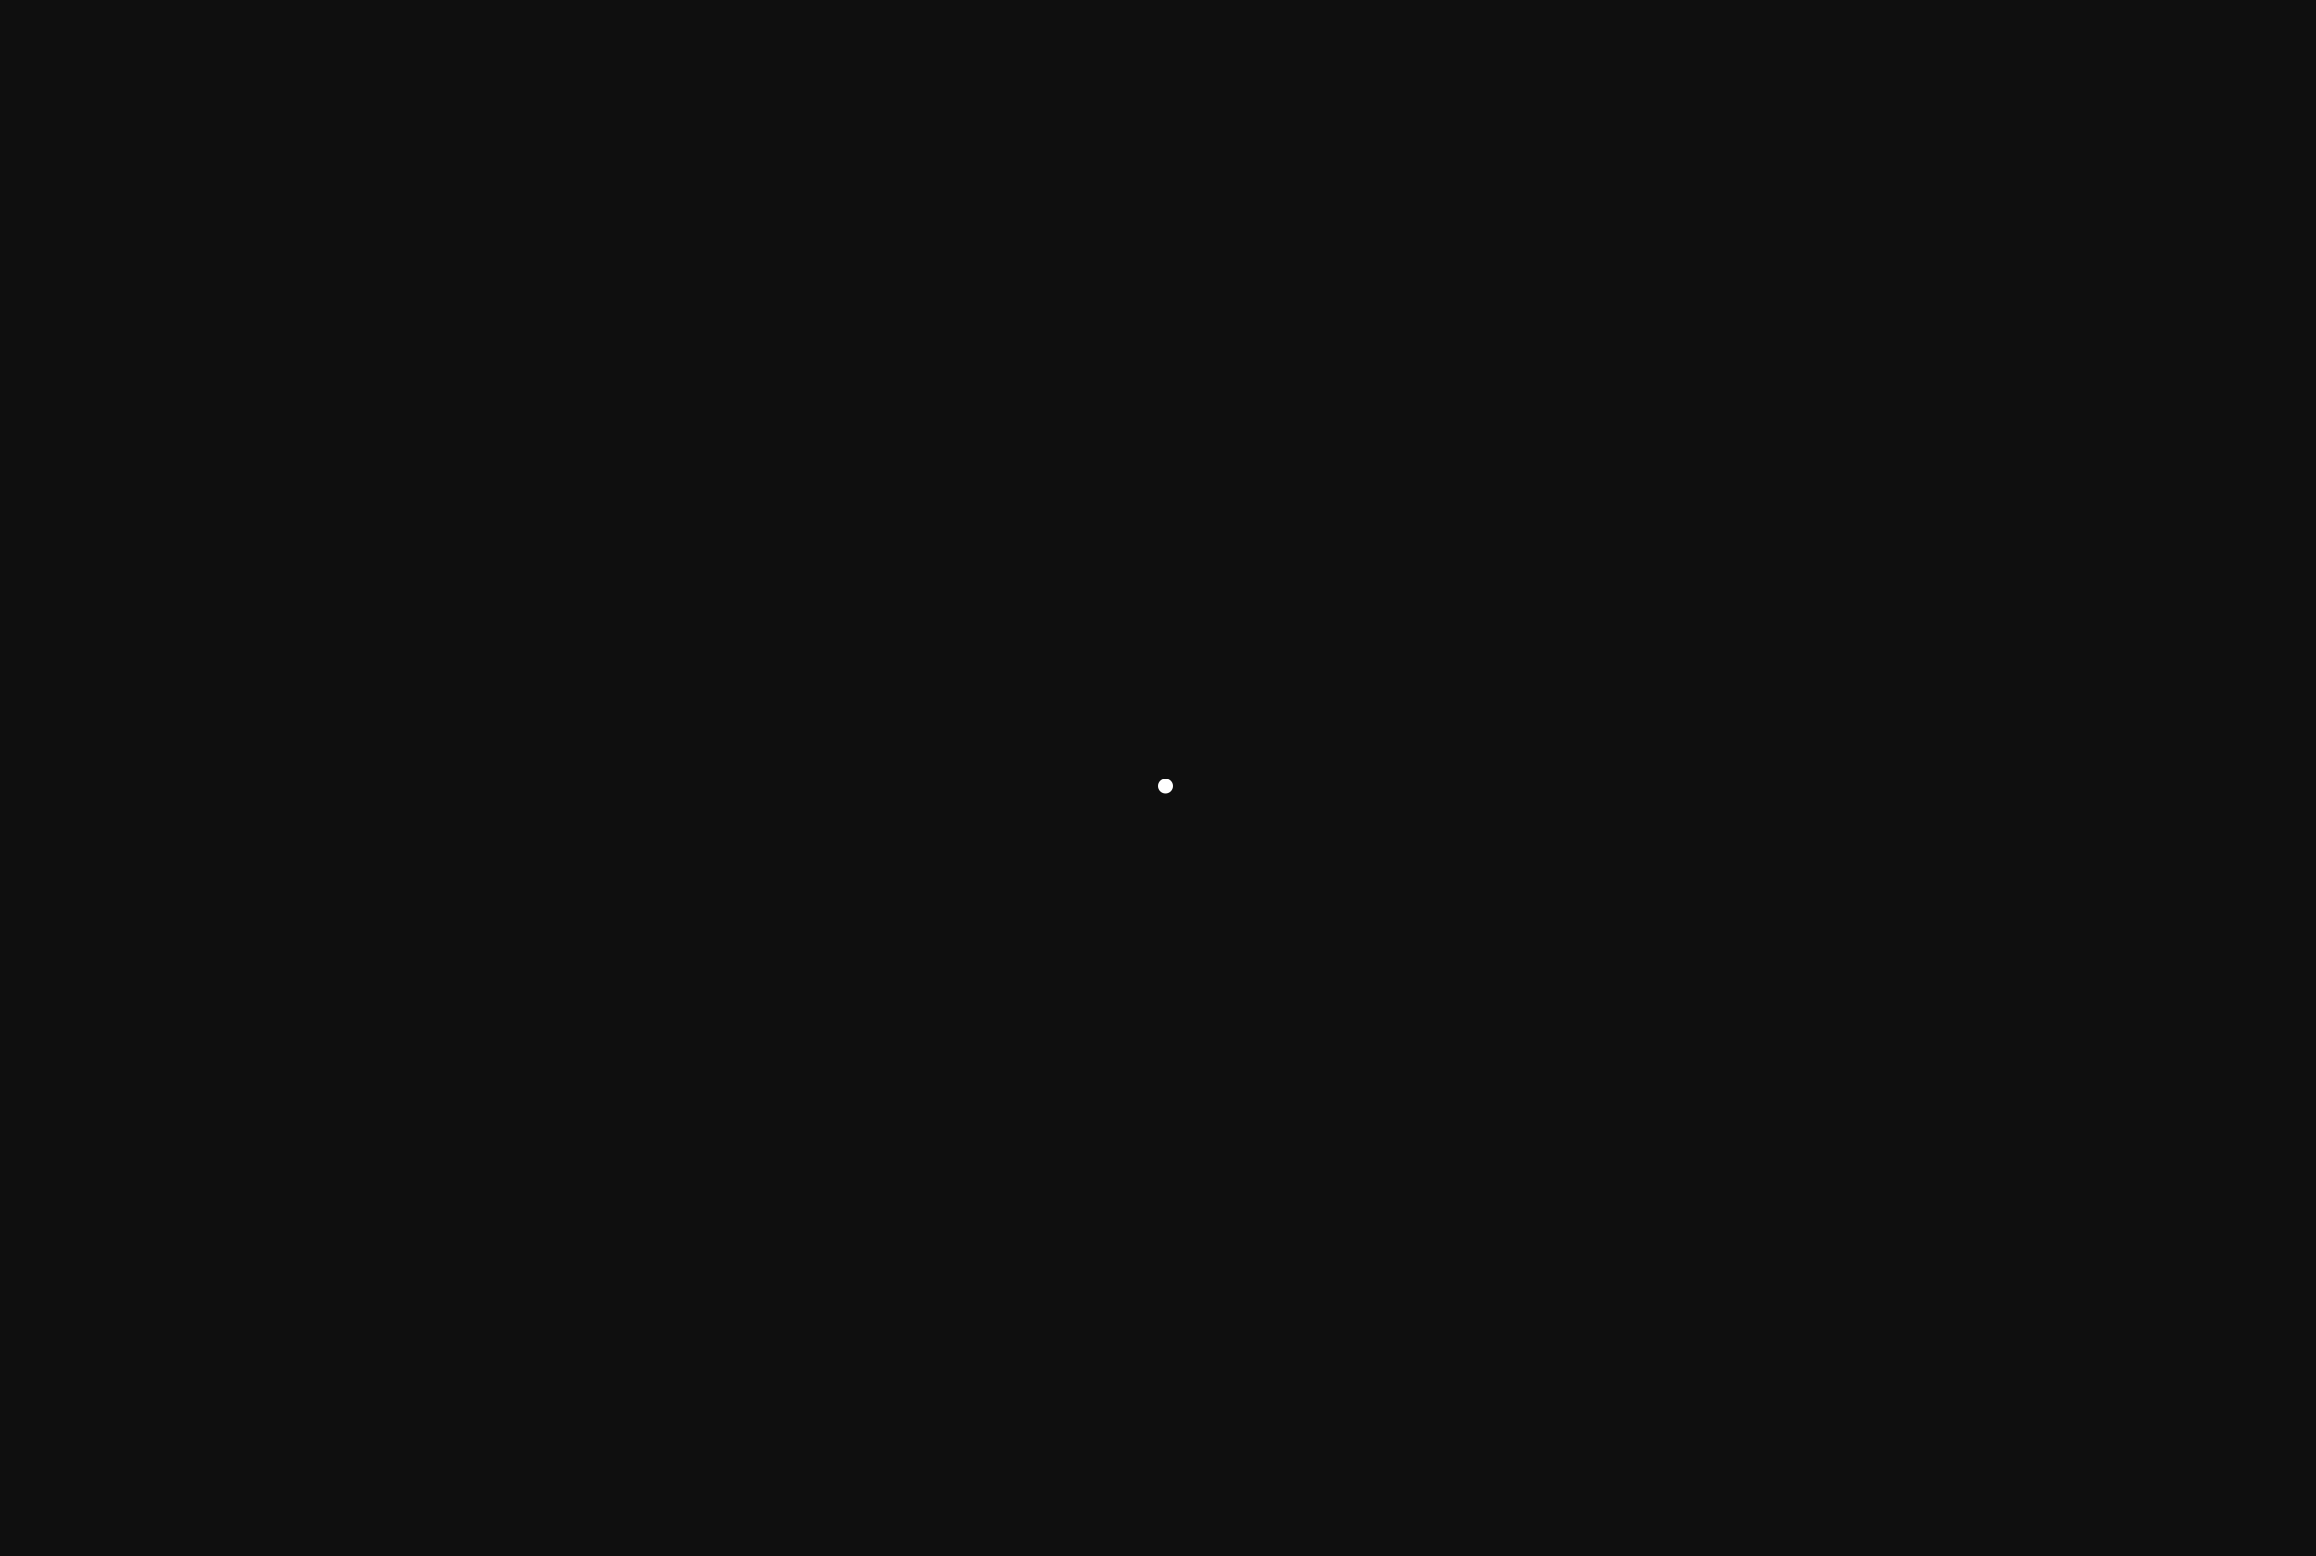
import math
import cairocffi as cairo

surface = cairo.ImageSurface(cairo.FORMAT_RGB24, 2316, 1556)
ctx = cairo.Context(surface)
options = cairo.FontOptions()
options.set_hint_metrics(cairo.HINT_METRICS_OFF)
options.set_hint_style(cairo.HINT_STYLE_NONE)
ctx.set_font_options(options)
ctx.set_miter_limit(4)


def rgb(r, g, b):
    ctx.set_source_rgb(r / 255, g / 255, b / 255)


rgb(15, 15, 15)
ctx.paint()
ctx.save()
ctx.rectangle(1158, 779, 15, 15)
ctx.clip()
rgb(255, 255, 255)
ctx.arc(1165.5, 786, 7.5, 0, 2 * math.pi)
ctx.fill()
ctx.restore()
surface.write_to_png('render.png')
